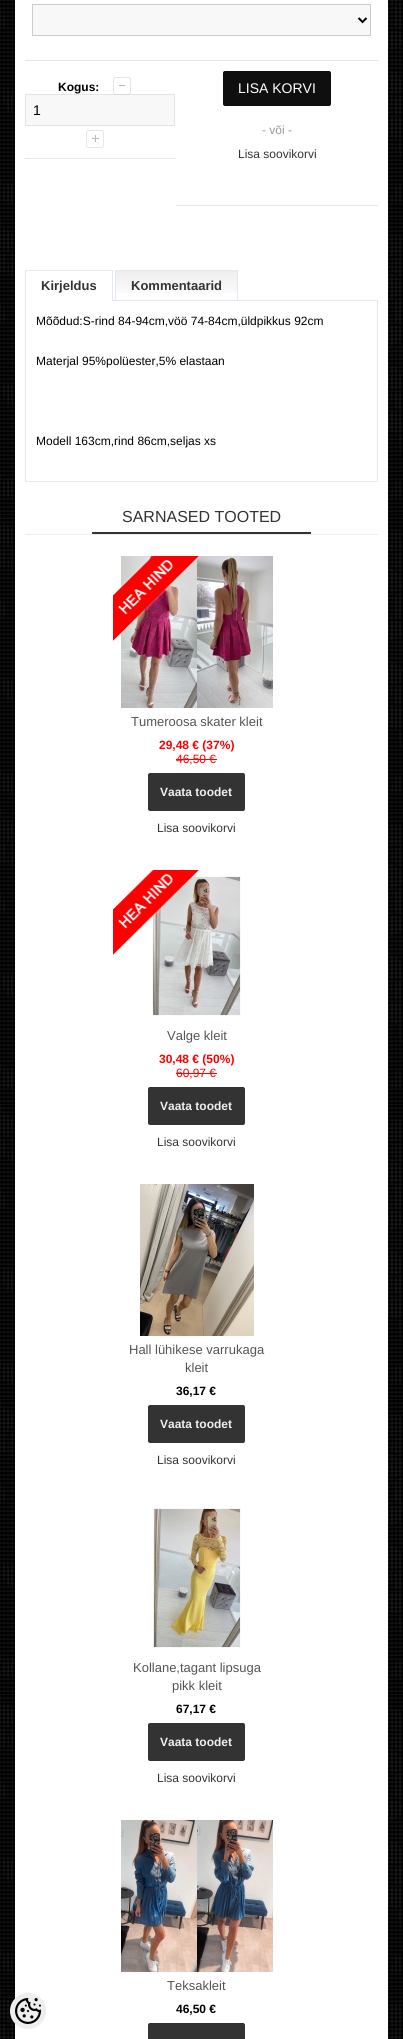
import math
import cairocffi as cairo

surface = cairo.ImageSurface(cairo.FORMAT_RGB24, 403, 2039)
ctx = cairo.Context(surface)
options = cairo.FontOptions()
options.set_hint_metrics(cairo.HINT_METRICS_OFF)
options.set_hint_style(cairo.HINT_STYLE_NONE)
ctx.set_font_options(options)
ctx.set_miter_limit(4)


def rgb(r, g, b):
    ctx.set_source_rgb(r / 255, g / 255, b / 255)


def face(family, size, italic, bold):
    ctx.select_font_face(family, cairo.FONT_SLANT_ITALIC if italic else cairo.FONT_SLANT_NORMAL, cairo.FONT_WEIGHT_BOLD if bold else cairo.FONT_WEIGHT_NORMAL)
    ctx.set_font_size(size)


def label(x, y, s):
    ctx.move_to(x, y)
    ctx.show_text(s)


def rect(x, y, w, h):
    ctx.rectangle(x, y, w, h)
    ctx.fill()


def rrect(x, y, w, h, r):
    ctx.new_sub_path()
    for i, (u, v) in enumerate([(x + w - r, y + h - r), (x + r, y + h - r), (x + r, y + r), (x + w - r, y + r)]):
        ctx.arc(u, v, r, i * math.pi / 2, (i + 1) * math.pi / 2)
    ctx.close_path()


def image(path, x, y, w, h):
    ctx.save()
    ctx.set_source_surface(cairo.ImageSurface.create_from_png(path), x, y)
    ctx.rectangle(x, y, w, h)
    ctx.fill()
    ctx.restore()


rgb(255, 255, 255)
ctx.paint()
image('image0.png', 0, 0, 403, 2039)
rgb(255, 255, 255)
rect(15, 0, 373, 2039)
rgb(238, 238, 238)
ctx.arc(28, 2011, 18, 0, 2 * math.pi)
ctx.fill()
image('image1.png', 15, 1998, 26, 26)
rgb(231, 231, 231)
rect(25, 60, 353, 1)
rgb(248, 248, 248)
ctx.rectangle(32.5, 4.5, 338, 31)
ctx.fill_preserve()
rgb(204, 204, 204)
ctx.set_line_width(1)
ctx.stroke()
ctx.new_path()
ctx.move_to(358.5, 18)
ctx.line_to(362.5, 22)
ctx.line_to(366.5, 18)
rgb(0, 0, 0)
ctx.set_line_width(2)
ctx.stroke()
rgb(231, 231, 231)
rect(25, 158, 151, 1)
face('Liberation Sans', 12, 0, 1)
rgb(0, 0, 0)
label(58, 91, 'Kogus:')
image('image2.png', 118, 85, 8, 1)
rgb(248, 248, 248)
ctx.rectangle(25.5, 94.5, 149, 31)
ctx.fill_preserve()
rgb(228, 228, 228)
ctx.set_line_width(1)
ctx.stroke()
rrect(113.5, 77.5, 17, 17, 2.5)
ctx.set_source_rgba(0.8, 0.8, 0.8, 0.5)
ctx.stroke()
face('Liberation Sans', 14, 0, 0)
rgb(0, 0, 0)
label(33, 115, '1')
image('image3.png', 91, 135, 8, 7)
rrect(86.5, 130.5, 17, 17, 2.5)
rgb(230, 230, 230)
ctx.stroke()
rgb(231, 231, 231)
rect(176, 205, 202, 1)
rgb(15, 15, 15)
rrect(223, 71, 108, 35, 2)
ctx.fill()
rgb(255, 255, 255)
label(238, 93, 'LISA KORVI')
face('Liberation Sans', 12, 0, 0)
rgb(153, 153, 153)
label(262, 134, '- või -')
rgb(51, 51, 51)
label(238, 158, 'Lisa soovikorvi')
rgb(228, 232, 241)
rect(113, 300, 265, 1)
rect(25, 270, 88, 1)
rect(112, 270, 1, 31)
rect(25, 270, 1, 31)
face('Liberation Sans', 13, 0, 1)
rgb(51, 51, 51)
label(41, 290, 'Kirjeldus')
image('image4.png', 116, 271, 121, 22)
rgb(228, 232, 241)
rect(115, 270, 123, 1)
rect(237, 270, 1, 30)
rect(115, 270, 1, 30)
rgb(51, 51, 51)
label(131, 290, 'Kommentaarid')
rgb(228, 232, 241)
rect(377, 301, 1, 181)
rect(25, 481, 353, 1)
rect(25, 301, 1, 181)
face('Liberation Sans', 12, 0, 0)
rgb(0, 0, 0)
label(36, 325, 'Mõõdud:S-rind 84-94cm,vöö 74-84cm,üldpikkus 92cm')
label(36, 365, 'Materjal 95%polüester,5% elastaan')
label(36, 445, 'Modell 163cm,rind 86cm,seljas xs')
rgb(238, 238, 238)
rect(25, 534, 353, 1)
rgb(51, 51, 51)
rect(92, 532, 219, 2)
face('Liberation Sans', 16, 0, 0)
label(122, 522, 'SARNASED TOOTED')
image('image6.png', 121, 556, 152, 152)
image('image5.png', 113, 556, 87, 85)
face('Liberation Sans', 13, 0, 0)
rgb(85, 85, 85)
label(131, 726, 'Tumeroosa skater kleit')
face('Liberation Sans', 12, 0, 1)
rgb(255, 0, 0)
label(159, 749, '29,48 € (37%)')
face('Liberation Sans', 12, 0, 0)
label(176, 763, '46,50 €')
rect(176, 759, 41, 1)
rgb(51, 51, 51)
rrect(148, 773, 97, 38, 2)
ctx.fill()
face('Liberation Sans', 12, 0, 1)
rgb(238, 238, 238)
label(160, 796, 'Vaata toodet')
face('Liberation Sans', 12, 0, 0)
rgb(51, 51, 51)
label(157, 832, 'Lisa soovikorvi')
image('image8.png', 152, 870, 89, 149)
image('image7.png', 113, 870, 86, 85)
face('Liberation Sans', 13, 0, 0)
rgb(85, 85, 85)
label(167, 1040, 'Valge kleit')
face('Liberation Sans', 12, 0, 1)
rgb(255, 0, 0)
label(159, 1063, '30,48 € (50%)')
face('Liberation Sans', 12, 0, 0)
label(176, 1077, '60,97 €')
rect(176, 1073, 41, 1)
rgb(51, 51, 51)
rrect(148, 1087, 97, 38, 2)
ctx.fill()
face('Liberation Sans', 12, 0, 1)
rgb(238, 238, 238)
label(160, 1110, 'Vaata toodet')
face('Liberation Sans', 12, 0, 0)
rgb(51, 51, 51)
label(157, 1146, 'Lisa soovikorvi')
image('image9.png', 138, 1184, 119, 152)
face('Liberation Sans', 13, 0, 0)
rgb(85, 85, 85)
label(129, 1354, 'Hall lühikese varrukaga')
label(185, 1372, 'kleit')
face('Liberation Sans', 12, 0, 1)
rgb(0, 0, 0)
label(176, 1395, '36,17 €')
rgb(51, 51, 51)
rrect(148, 1405, 97, 38, 2)
ctx.fill()
rgb(238, 238, 238)
label(160, 1428, 'Vaata toodet')
face('Liberation Sans', 12, 0, 0)
rgb(51, 51, 51)
label(157, 1464, 'Lisa soovikorvi')
image('image10.png', 153, 1502, 89, 151)
face('Liberation Sans', 13, 0, 0)
rgb(85, 85, 85)
label(133, 1672, 'Kollane,tagant lipsuga')
label(172, 1690, 'pikk kleit')
face('Liberation Sans', 12, 0, 1)
rgb(0, 0, 0)
label(176, 1713, '67,17 €')
rgb(51, 51, 51)
rrect(148, 1723, 97, 38, 2)
ctx.fill()
rgb(238, 238, 238)
label(160, 1746, 'Vaata toodet')
face('Liberation Sans', 12, 0, 0)
rgb(51, 51, 51)
label(157, 1782, 'Lisa soovikorvi')
image('image11.png', 121, 1820, 152, 152)
face('Liberation Sans', 13, 0, 0)
rgb(85, 85, 85)
label(167, 1990, 'Teksakleit')
face('Liberation Sans', 12, 0, 1)
rgb(0, 0, 0)
label(176, 2013, '46,50 €')
rgb(51, 51, 51)
rrect(148, 2023, 97, 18, 2)
ctx.fill()
surface.write_to_png('render.png')
